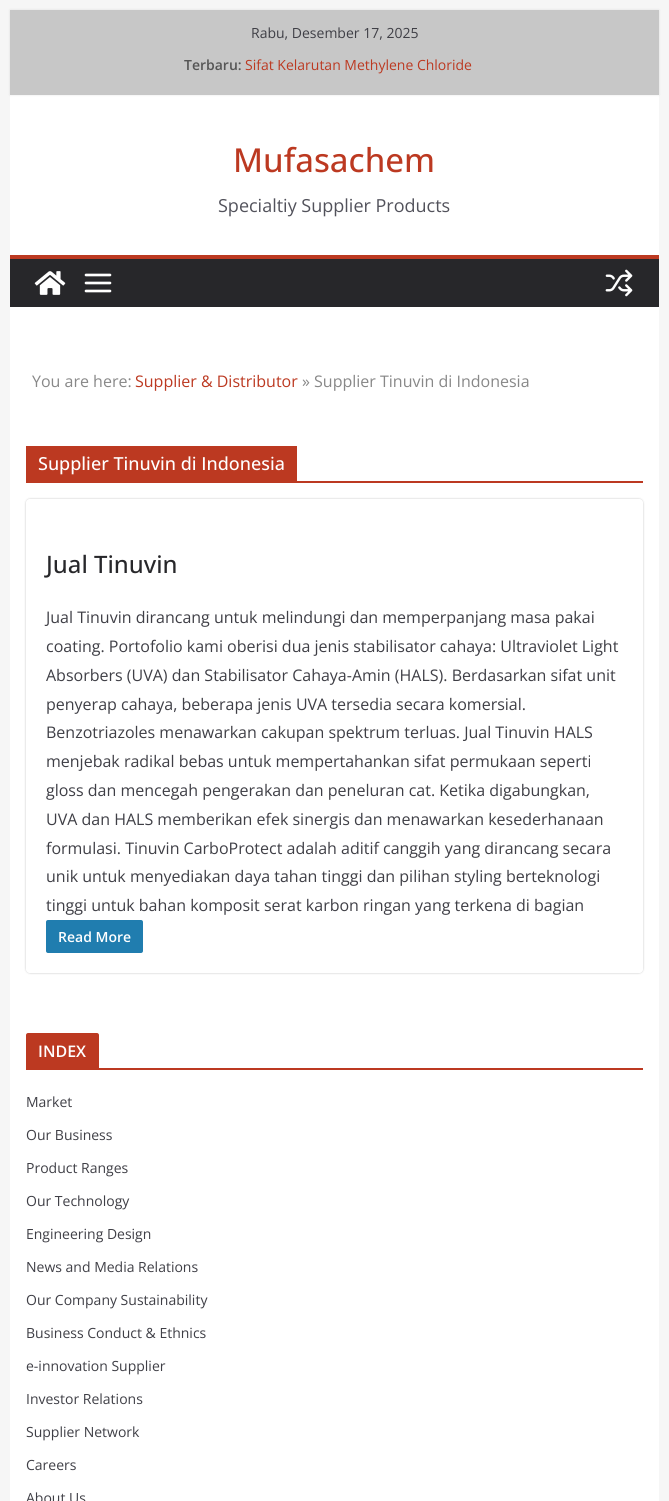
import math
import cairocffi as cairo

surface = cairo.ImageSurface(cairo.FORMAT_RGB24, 669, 1501)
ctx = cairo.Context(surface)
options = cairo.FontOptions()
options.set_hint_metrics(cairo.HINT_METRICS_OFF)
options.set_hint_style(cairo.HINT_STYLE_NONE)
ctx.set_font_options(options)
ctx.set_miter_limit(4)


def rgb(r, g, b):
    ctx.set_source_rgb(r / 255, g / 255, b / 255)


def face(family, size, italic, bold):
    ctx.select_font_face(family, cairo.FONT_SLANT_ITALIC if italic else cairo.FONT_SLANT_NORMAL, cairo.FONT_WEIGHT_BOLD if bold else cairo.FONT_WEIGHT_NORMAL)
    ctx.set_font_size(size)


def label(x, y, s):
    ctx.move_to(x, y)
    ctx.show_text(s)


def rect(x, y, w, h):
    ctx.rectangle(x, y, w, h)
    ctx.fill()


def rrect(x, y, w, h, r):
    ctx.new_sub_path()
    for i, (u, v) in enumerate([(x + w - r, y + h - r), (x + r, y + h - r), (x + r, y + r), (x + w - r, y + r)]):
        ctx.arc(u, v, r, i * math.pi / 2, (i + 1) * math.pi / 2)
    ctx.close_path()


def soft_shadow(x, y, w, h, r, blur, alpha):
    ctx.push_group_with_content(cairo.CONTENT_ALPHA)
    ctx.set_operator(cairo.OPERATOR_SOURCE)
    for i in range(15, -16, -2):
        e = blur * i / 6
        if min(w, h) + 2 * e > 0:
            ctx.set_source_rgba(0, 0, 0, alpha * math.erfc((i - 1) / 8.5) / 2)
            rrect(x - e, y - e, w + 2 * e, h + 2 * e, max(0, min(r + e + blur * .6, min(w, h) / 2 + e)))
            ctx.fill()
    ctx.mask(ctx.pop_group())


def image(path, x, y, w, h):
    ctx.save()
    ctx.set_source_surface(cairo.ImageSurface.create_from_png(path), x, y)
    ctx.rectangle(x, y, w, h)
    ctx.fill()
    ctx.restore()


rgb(246, 246, 246)
ctx.paint()
rgb(255, 255, 255)
rect(10, 95, 649, 160)
rgb(0, 0, 0)
soft_shadow(10, 10, 649, 85, 0, 1, 0.1)
rgb(199, 199, 199)
rect(10, 10, 649, 85)
face('Open Sans', 14, 0, 0)
rgb(63, 63, 70)
label(251, 38, 'Rabu, Desember 17, 2025')
face('Open Sans SemiBold', 14, 0, 0)
rgb(85, 85, 85)
label(184, 70, 'Terbaru:')
face('Open Sans', 14, 0, 0)
rgb(188, 57, 33)
label(245, 70, 'Sifat Kelarutan Methylene Chloride')
face('Open Sans Medium', 33, 0, 0)
label(233, 172, 'Mufasachem')
face('Open Sans', 18, 0, 0)
rgb(82, 82, 91)
label(218, 212, 'Specialtiy Supplier Products')
rgb(39, 39, 42)
rect(10, 259, 649, 48)
rgb(188, 57, 33)
rect(10, 255, 649, 4)
image('image0.png', 34, 271, 32, 24)
image('image1.png', 84, 273, 28, 20)
image('image2.png', 605, 269, 28, 28)
rgb(255, 255, 255)
rect(10, 307, 649, 1194)
face('Open Sans', 16, 0, 0)
rgb(136, 136, 136)
label(32, 387, 'You are here:')
rgb(188, 57, 33)
label(135, 387, 'Supplier & Distributor')
rgb(136, 136, 136)
label(302, 387, '» Supplier Tinuvin di Indonesia')
rgb(188, 57, 33)
rect(26, 481, 617, 2)
rect(26, 446, 271, 35)
face('Open Sans Medium', 18, 0, 0)
rgb(255, 255, 255)
label(38, 470, 'Supplier Tinuvin di Indonesia')
ctx.save()
ctx.set_fill_rule(cairo.FILL_RULE_EVEN_ODD)
ctx.new_path()
ctx.move_to(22, 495)
ctx.line_to(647, 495)
ctx.line_to(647, 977)
ctx.line_to(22, 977)
ctx.close_path()
ctx.move_to(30, 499)
ctx.line_to(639, 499)
ctx.curve_to(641, 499, 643, 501, 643, 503)
ctx.line_to(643, 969)
ctx.curve_to(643, 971, 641, 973, 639, 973)
ctx.line_to(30, 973)
ctx.curve_to(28, 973, 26, 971, 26, 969)
ctx.line_to(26, 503)
ctx.curve_to(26, 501, 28, 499, 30, 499)
ctx.close_path()
ctx.clip()
rgb(0, 0, 0)
soft_shadow(26, 499, 617, 474, 4, 1, 0.24)
ctx.restore()
face('Open Sans Medium', 24, 0, 0)
rgb(39, 39, 42)
label(46, 573, 'Jual Tinuvin')
face('Open Sans', 16, 0, 0)
rgb(63, 63, 70)
label(46, 623, 'Jual Tinuvin dirancang untuk melindungi dan memperpanjang masa pakai')
label(46, 652, 'coating. Portofolio kami oberisi dua jenis stabilisator cahaya: Ultraviolet Light')
label(46, 681, 'Absorbers (UVA) dan Stabilisator Cahaya-Amin (HALS). Berdasarkan sifat unit')
label(46, 710, 'penyerap cahaya, beberapa jenis UVA tersedia secara komersial.')
label(46, 738, 'Benzotriazoles menawarkan cakupan spektrum terluas. Jual Tinuvin HALS')
label(46, 767, 'menjebak radikal bebas untuk mempertahankan sifat permukaan seperti')
label(46, 796, 'gloss dan mencegah pengerakan dan peneluran cat. Ketika digabungkan,')
label(46, 825, 'UVA dan HALS memberikan efek sinergis dan menawarkan kesederhanaan')
label(46, 854, 'formulasi. Tinuvin CarboProtect adalah aditif canggih yang dirancang secara')
label(46, 882, 'unik untuk menyediakan daya tahan tinggi dan pilihan styling berteknologi')
label(46, 911, 'tinggi untuk bahan komposit serat karbon ringan yang terkena di bagian')
rgb(32, 125, 175)
rrect(46, 920, 97, 33, 2)
ctx.fill()
face('Open Sans SemiBold', 14, 0, 0)
rgb(255, 255, 255)
label(58, 942, 'Read More')
rgb(188, 57, 33)
rect(26, 1068, 617, 2)
ctx.new_path()
ctx.move_to(28, 1033)
ctx.line_to(97, 1033)
ctx.curve_to(98, 1033, 99, 1034, 99, 1035)
ctx.line_to(99, 1068)
ctx.line_to(26, 1068)
ctx.line_to(26, 1035)
ctx.curve_to(26, 1034, 27, 1033, 28, 1033)
ctx.close_path()
ctx.fill()
face('Open Sans SemiBold', 16, 0, 0)
rgb(255, 255, 255)
label(38, 1057, 'INDEX')
face('Open Sans', 14, 0, 0)
rgb(63, 63, 70)
label(26, 1107, 'Market')
label(26, 1140, 'Our Business')
label(26, 1173, 'Product Ranges')
label(26, 1206, 'Our Technology')
label(26, 1239, 'Engineering Design')
label(26, 1272, 'News and Media Relations')
label(26, 1305, 'Our Company Sustainability')
label(26, 1338, 'Business Conduct & Ethnics')
label(26, 1371, 'e-innovation Supplier')
label(26, 1404, 'Investor Relations')
label(26, 1437, 'Supplier Network')
label(26, 1470, 'Careers')
label(26, 1503, 'About Us')
surface.write_to_png('render.png')
